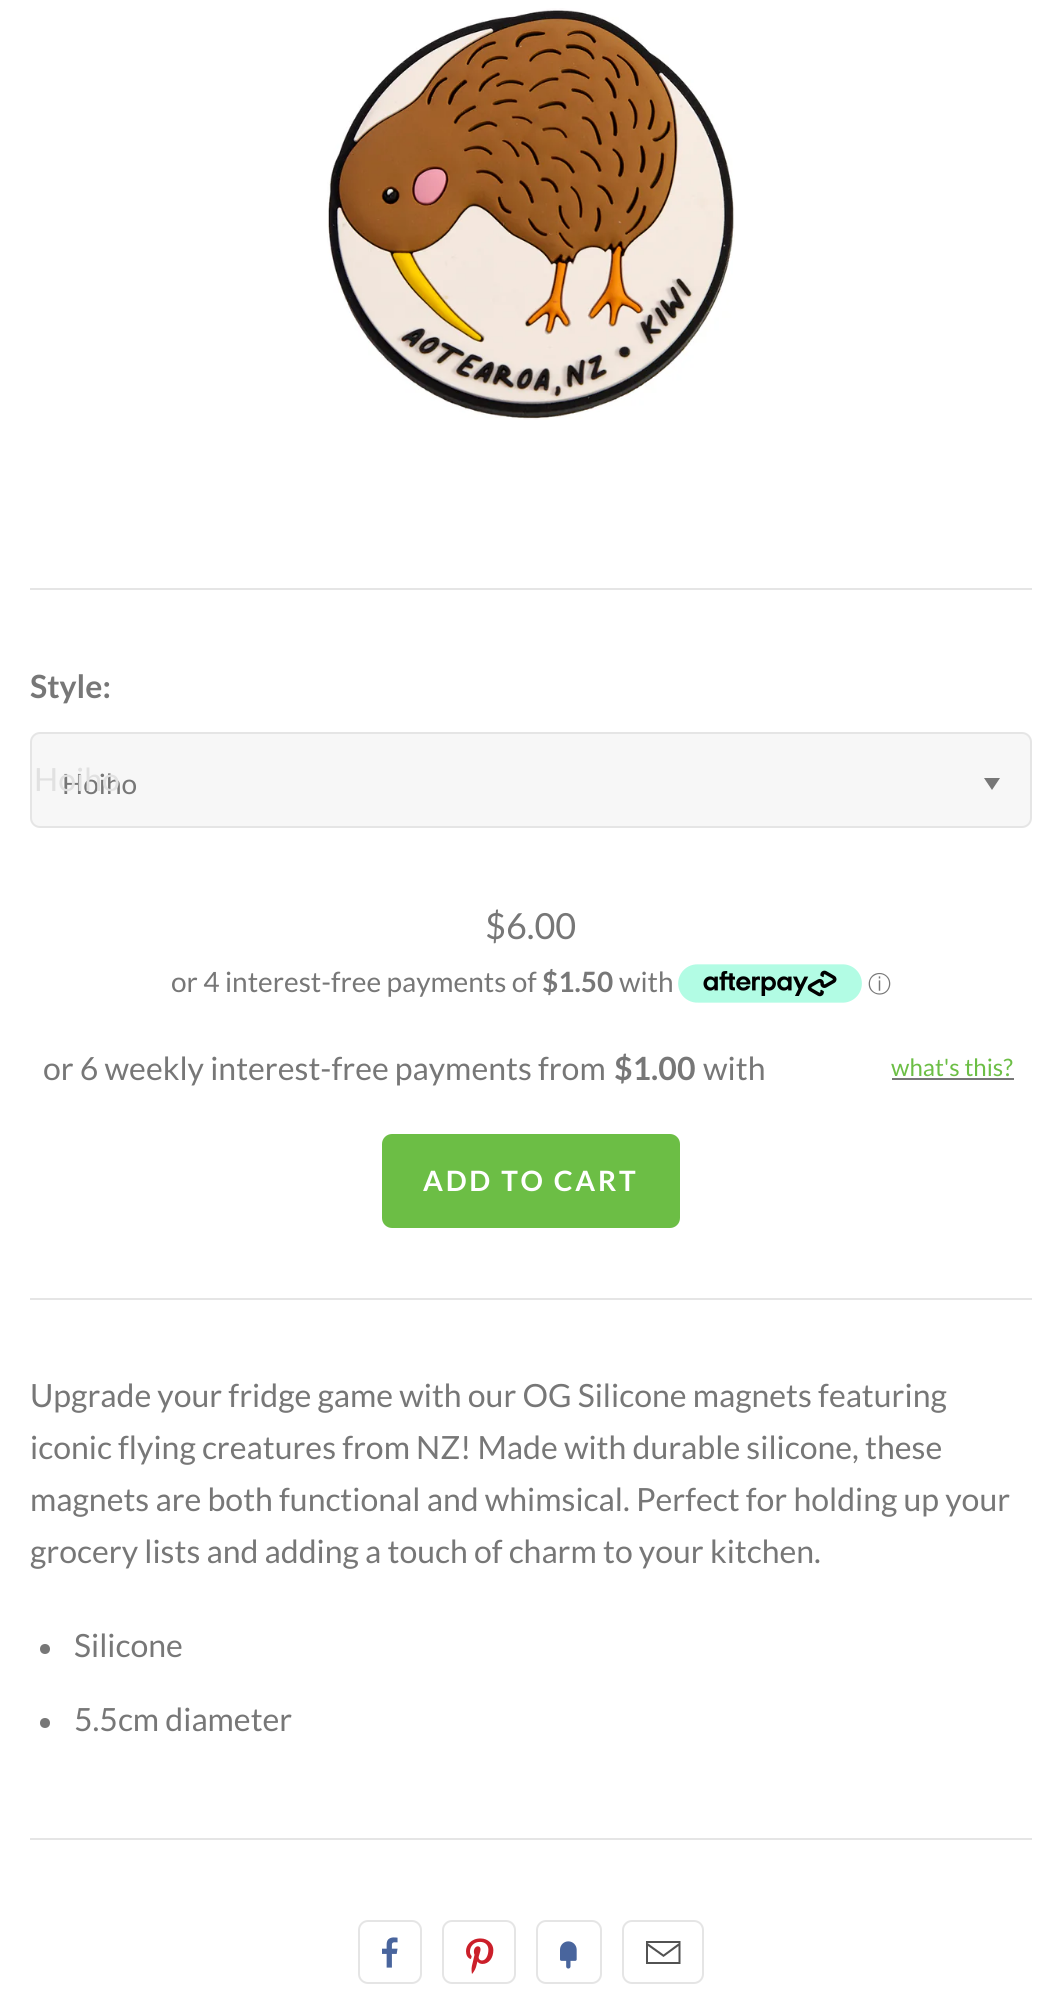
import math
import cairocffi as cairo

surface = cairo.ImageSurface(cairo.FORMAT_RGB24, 1062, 1997)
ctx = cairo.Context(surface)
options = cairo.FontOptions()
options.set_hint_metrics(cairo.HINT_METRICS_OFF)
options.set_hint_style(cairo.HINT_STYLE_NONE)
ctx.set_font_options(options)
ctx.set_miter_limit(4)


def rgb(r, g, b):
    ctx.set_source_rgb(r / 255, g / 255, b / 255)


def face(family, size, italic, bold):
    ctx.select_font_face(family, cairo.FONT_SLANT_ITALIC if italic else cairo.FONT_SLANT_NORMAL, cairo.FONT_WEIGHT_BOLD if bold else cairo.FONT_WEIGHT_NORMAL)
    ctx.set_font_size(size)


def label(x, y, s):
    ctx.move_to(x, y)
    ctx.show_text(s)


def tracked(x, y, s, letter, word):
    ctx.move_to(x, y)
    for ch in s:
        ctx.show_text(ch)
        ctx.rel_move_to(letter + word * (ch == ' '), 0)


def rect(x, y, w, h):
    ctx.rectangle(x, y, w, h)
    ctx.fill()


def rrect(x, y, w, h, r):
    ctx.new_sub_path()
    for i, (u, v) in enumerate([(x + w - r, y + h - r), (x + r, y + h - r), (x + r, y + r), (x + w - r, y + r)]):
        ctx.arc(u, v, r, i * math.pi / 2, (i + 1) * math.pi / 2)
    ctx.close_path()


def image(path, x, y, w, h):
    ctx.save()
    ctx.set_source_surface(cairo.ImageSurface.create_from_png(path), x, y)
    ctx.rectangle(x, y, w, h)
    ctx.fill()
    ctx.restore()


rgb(255, 255, 255)
ctx.paint()
image('image0.png', 327, 8, 408, 412)
rgb(229, 229, 229)
rect(30, 588, 1002, 2)
face('Lato', 32, 0, 1)
rgb(119, 119, 119)
label(30, 698, 'Style:')
rgb(247, 247, 247)
rrect(31, 733, 1000, 94, 9)
ctx.fill_preserve()
rgb(229, 229, 229)
ctx.stroke()
face('Lato', 28, 0, 0)
rgb(119, 119, 119)
label(62, 794, 'Hoiho')
face('Lato', 32, 0, 0)
rgb(225, 225, 225)
label(34, 791, 'Hoiho')
rgb(119, 119, 119)
ctx.new_path()
ctx.move_to(984, 778)
ctx.line_to(1000, 778)
ctx.line_to(992, 790)
ctx.close_path()
ctx.fill()
face('Lato', 36, 0, 0)
label(485, 939, '$6.00')
face('Lato', 28, 0, 0)
label(171, 992, 'or 4 interest-free payments of')
face('Lato', 28, 0, 1)
label(542, 992, '$1.50')
face('Lato', 28, 0, 0)
label(619, 992, 'with')
image('image1.png', 678, 964, 184, 39)
face('WenQuanYi Zen Hei Medium', 23, 0, 0)
label(868, 992, 'ⓘ')
face('Lato', 32, 0, 0)
label(43, 1080, 'or 6 weekly interest-free payments from')
face('Lato', 32, 0, 1)
label(614, 1080, '$1.00')
face('Lato', 32, 0, 0)
label(703, 1080, 'with')
face('Lato', 24, 0, 0)
rgb(108, 190, 69)
label(891, 1076, 'what\'s this?')
rgb(119, 119, 119)
rect(892, 1078, 122, 2)
rgb(108, 190, 69)
rrect(382, 1134, 298, 94, 10)
ctx.fill()
face('Lato', 28, 0, 1)
rgb(255, 255, 255)
tracked(423, 1191, 'ADD TO CART', 2.75, 0)
rgb(229, 229, 229)
rect(30, 1298, 1002, 2)
face('Lato', 32, 0, 0)
rgb(119, 119, 119)
label(30, 1407, 'Upgrade your fridge game with our OG Silicone magnets featuring')
label(30, 1459, 'iconic flying creatures from NZ! Made with durable silicone, these')
label(30, 1511, 'magnets are both functional and whimsical. Perfect for holding up your')
label(30, 1563, 'grocery lists and adding a touch of charm to your kitchen.')
ctx.new_path()
ctx.arc(45, 1649, 5, 0, 2 * math.pi)
ctx.fill()
label(74, 1657, 'Silicone')
ctx.new_path()
ctx.arc(45, 1723, 5, 0, 2 * math.pi)
ctx.fill()
label(74, 1731, '5.5cm diameter')
rgb(229, 229, 229)
rect(30, 1838, 1002, 2)
rrect(359, 1921, 62, 62, 9)
ctx.stroke()
image('image2.png', 382, 1937, 16, 31)
rrect(443, 1921, 72, 62, 9)
ctx.stroke()
image('image3.png', 466, 1938, 28, 36)
rrect(537, 1921, 64, 62, 9)
ctx.stroke()
image('image4.png', 560, 1941, 17, 28)
rrect(623, 1921, 80, 62, 9)
ctx.stroke()
rgb(82, 82, 82)
ctx.new_path()
ctx.move_to(680.5, 1941)
ctx.line_to(646, 1941)
ctx.line_to(646, 1964)
ctx.line_to(680.5, 1964)
ctx.close_path()
ctx.move_to(679, 1943)
ctx.line_to(663.5, 1954.5)
ctx.line_to(647.5, 1943)
ctx.close_path()
ctx.move_to(678.5, 1946)
ctx.line_to(678.5, 1962)
ctx.line_to(648, 1962)
ctx.line_to(648, 1946)
ctx.line_to(663.5, 1957)
ctx.close_path()
ctx.fill()
surface.write_to_png('render.png')
